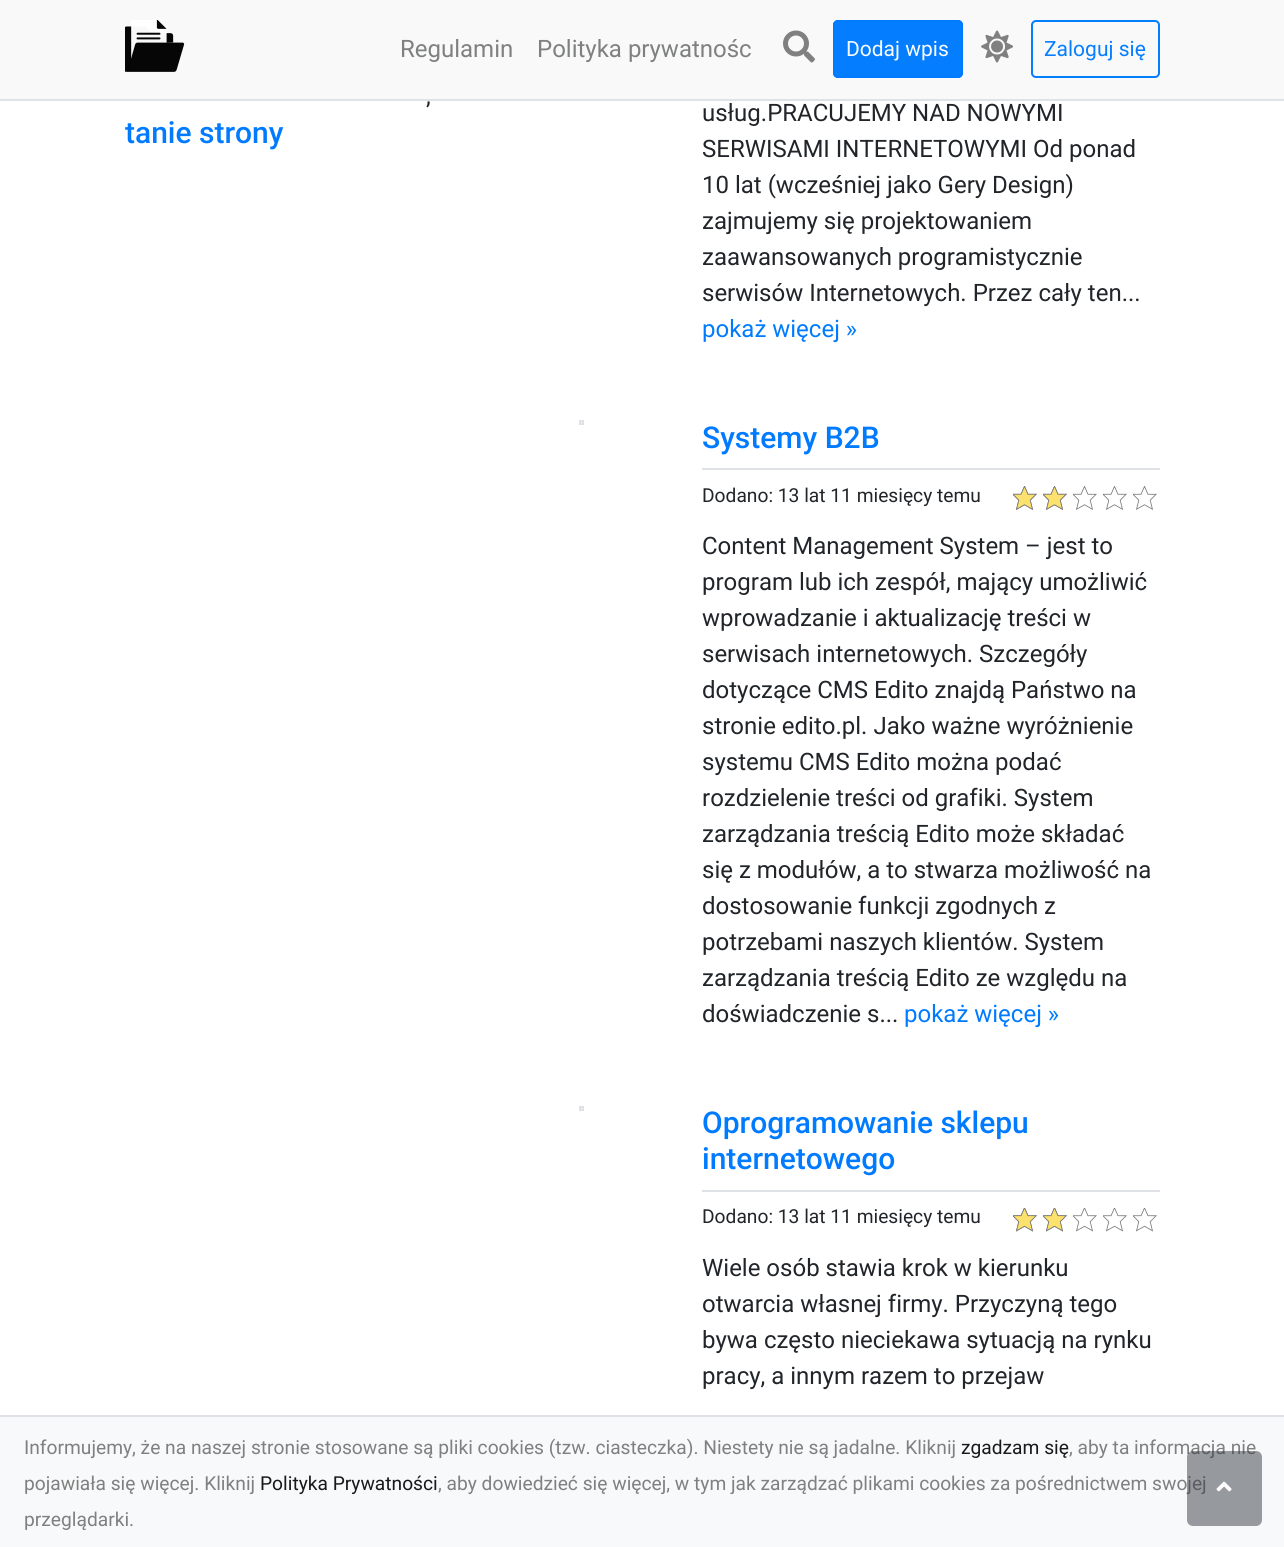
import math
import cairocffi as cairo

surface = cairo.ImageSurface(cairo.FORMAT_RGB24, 1284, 1547)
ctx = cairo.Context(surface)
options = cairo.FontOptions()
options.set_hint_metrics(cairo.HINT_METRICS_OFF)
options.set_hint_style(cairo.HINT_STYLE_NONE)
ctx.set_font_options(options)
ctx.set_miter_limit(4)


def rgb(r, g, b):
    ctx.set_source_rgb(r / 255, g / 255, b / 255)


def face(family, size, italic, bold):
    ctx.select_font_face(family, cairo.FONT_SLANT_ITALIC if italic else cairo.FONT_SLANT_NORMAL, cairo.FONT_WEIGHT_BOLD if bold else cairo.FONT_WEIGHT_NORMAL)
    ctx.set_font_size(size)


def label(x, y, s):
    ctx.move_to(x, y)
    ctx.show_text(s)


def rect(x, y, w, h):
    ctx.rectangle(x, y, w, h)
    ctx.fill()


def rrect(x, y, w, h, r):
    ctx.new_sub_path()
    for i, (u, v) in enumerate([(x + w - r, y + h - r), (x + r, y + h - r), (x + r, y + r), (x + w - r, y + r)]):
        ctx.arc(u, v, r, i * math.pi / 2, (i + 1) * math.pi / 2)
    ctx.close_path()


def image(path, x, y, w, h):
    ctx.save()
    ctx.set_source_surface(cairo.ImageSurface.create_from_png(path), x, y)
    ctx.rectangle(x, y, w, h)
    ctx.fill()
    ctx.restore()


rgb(255, 255, 255)
ctx.paint()
ctx.set_source_rgba(0.973, 0.976, 0.98, 0.98)
rect(0, 0, 1284, 101)
ctx.set_source_rgba(0.871, 0.886, 0.902, 0.98)
rect(0, 99, 1284, 2)
image('image0.png', 125, 20, 60, 52)
face('Roboto', 24, 0, 0)
rgb(127, 128, 128)
label(400, 57, 'Regulamin')
label(537, 57, 'Polityka prywatnośc')
image('image1.png', 783, 30, 32, 33)
ctx.set_source_rgba(0, 0.482, 1, 0.98)
rrect(833, 20, 130, 58, 5)
ctx.fill()
rrect(834, 21, 128, 56, 4)
ctx.stroke()
face('Roboto', 21, 0, 0)
rgb(249, 252, 255)
label(846, 56, 'Dodaj wpis')
image('image2.png', 981, 30, 32, 33)
rrect(1032, 21, 127, 56, 4)
ctx.set_source_rgba(0, 0.482, 1, 0.98)
ctx.stroke()
rgb(6, 126, 255)
label(1044, 56, 'Zaloguj się')
face('Roboto', 24, 0, 0)
rgb(33, 37, 41)
label(426, 104, ',')
face('Roboto Medium', 30, 0, 0)
rgb(0, 123, 255)
label(125, 143, 'tanie strony')
face('Roboto', 24, 0, 0)
rgb(33, 37, 41)
label(702, 121, 'usług.PRACUJEMY NAD NOWYMI')
label(702, 157, 'SERWISAMI INTERNETOWYMI Od ponad')
label(702, 193, '10 lat (wcześniej jako Gery Design)')
label(702, 229, 'zajmujemy się projektowaniem')
label(702, 265, 'zaawansowanych programistycznie')
label(702, 301, 'serwisów Internetowych. Przez cały ten...')
rgb(0, 123, 255)
label(702, 337, 'pokaż więcej »')
ctx.rectangle(580, 421, 3, 3)
rgb(222, 226, 230)
ctx.stroke()
rect(702, 468, 458, 2)
face('Roboto Medium', 30, 0, 0)
rgb(0, 123, 255)
label(702, 448, 'Systemy B2B')
face('Roboto', 19.2, 0, 0)
rgb(33, 37, 41)
label(702, 502, 'Dodano: 13 lat 11 miesięcy temu')
image('image3.png', 1013, 486, 24, 24)
image('image3.png', 1043, 486, 24, 24)
image('image3.png', 1073, 486, 24, 24)
image('image3.png', 1103, 486, 24, 24)
image('image3.png', 1133, 486, 24, 24)
image('image4.png', 1013, 486, 24, 24)
image('image4.png', 1043, 486, 24, 24)
face('Roboto', 24, 0, 0)
label(702, 554, 'Content Management System – jest to')
label(702, 590, 'program lub ich zespół, mający umożliwić')
label(702, 626, 'wprowadzanie i aktualizację treści w')
label(702, 662, 'serwisach internetowych. Szczegóły')
label(702, 698, 'dotyczące CMS Edito znajdą Państwo na')
label(702, 734, 'stronie edito.pl. Jako ważne wyróżnienie')
label(702, 770, 'systemu CMS Edito można podać')
label(702, 806, 'rozdzielenie treści od grafiki. System')
label(702, 842, 'zarządzania treścią Edito może składać')
label(702, 878, 'się z modułów, a to stwarza możliwość na')
label(702, 914, 'dostosowanie funkcji zgodnych z')
label(702, 950, 'potrzebami naszych klientów. System')
label(702, 986, 'zarządzania treścią Edito ze względu na')
label(702, 1022, 'doświadczenie s...')
rgb(0, 123, 255)
label(904, 1022, 'pokaż więcej »')
ctx.rectangle(580, 1107, 3, 3)
rgb(222, 226, 230)
ctx.stroke()
rect(702, 1190, 458, 2)
face('Roboto Medium', 30, 0, 0)
rgb(0, 123, 255)
label(702, 1133, 'Oprogramowanie sklepu')
label(702, 1169, 'internetowego')
face('Roboto', 19.2, 0, 0)
rgb(33, 37, 41)
label(702, 1223, 'Dodano: 13 lat 11 miesięcy temu')
image('image5.png', 1013, 1208, 24, 24)
image('image5.png', 1043, 1208, 24, 24)
image('image5.png', 1073, 1208, 24, 24)
image('image5.png', 1103, 1208, 24, 24)
image('image5.png', 1133, 1208, 24, 24)
image('image6.png', 1013, 1208, 24, 24)
image('image6.png', 1043, 1208, 24, 24)
face('Roboto', 24, 0, 0)
label(702, 1276, 'Wiele osób stawia krok w kierunku')
label(702, 1312, 'otwarcia własnej firmy. Przyczyną tego')
label(702, 1348, 'bywa często nieciekawa sytuacją na rynku')
label(702, 1384, 'pracy, a innym razem to przejaw')
rgb(248, 249, 250)
rect(0, 1417, 1284, 130)
rgb(222, 226, 230)
rect(0, 1415, 1284, 2)
face('Roboto', 19.2, 0, 0)
rgb(127, 128, 128)
label(24, 1454, 'Informujemy, że na naszej stronie stosowane są pliki cookies (tzw. ciasteczka). Niestety nie są jadalne. Kliknij')
rgb(25, 25, 25)
label(961, 1454, 'zgadzam się')
rgb(127, 128, 128)
label(1069, 1454, ', aby ta informacja nie')
label(24, 1490, 'pojawiała się więcej. Kliknij')
rgb(25, 25, 25)
label(260, 1490, 'Polityka Prywatności')
rgb(127, 128, 128)
label(438, 1490, ', aby dowiedzieć się więcej, w tym jak zarządzać plikami cookies za pośrednictwem swojej')
label(24, 1526, 'przeglądarki.')
ctx.set_source_rgba(0.204, 0.227, 0.251, 0.5)
rrect(1187, 1451, 75, 75, 6)
ctx.fill()
image('image7.png', 1216, 1481, 16, 11)
surface.write_to_png('render.png')
